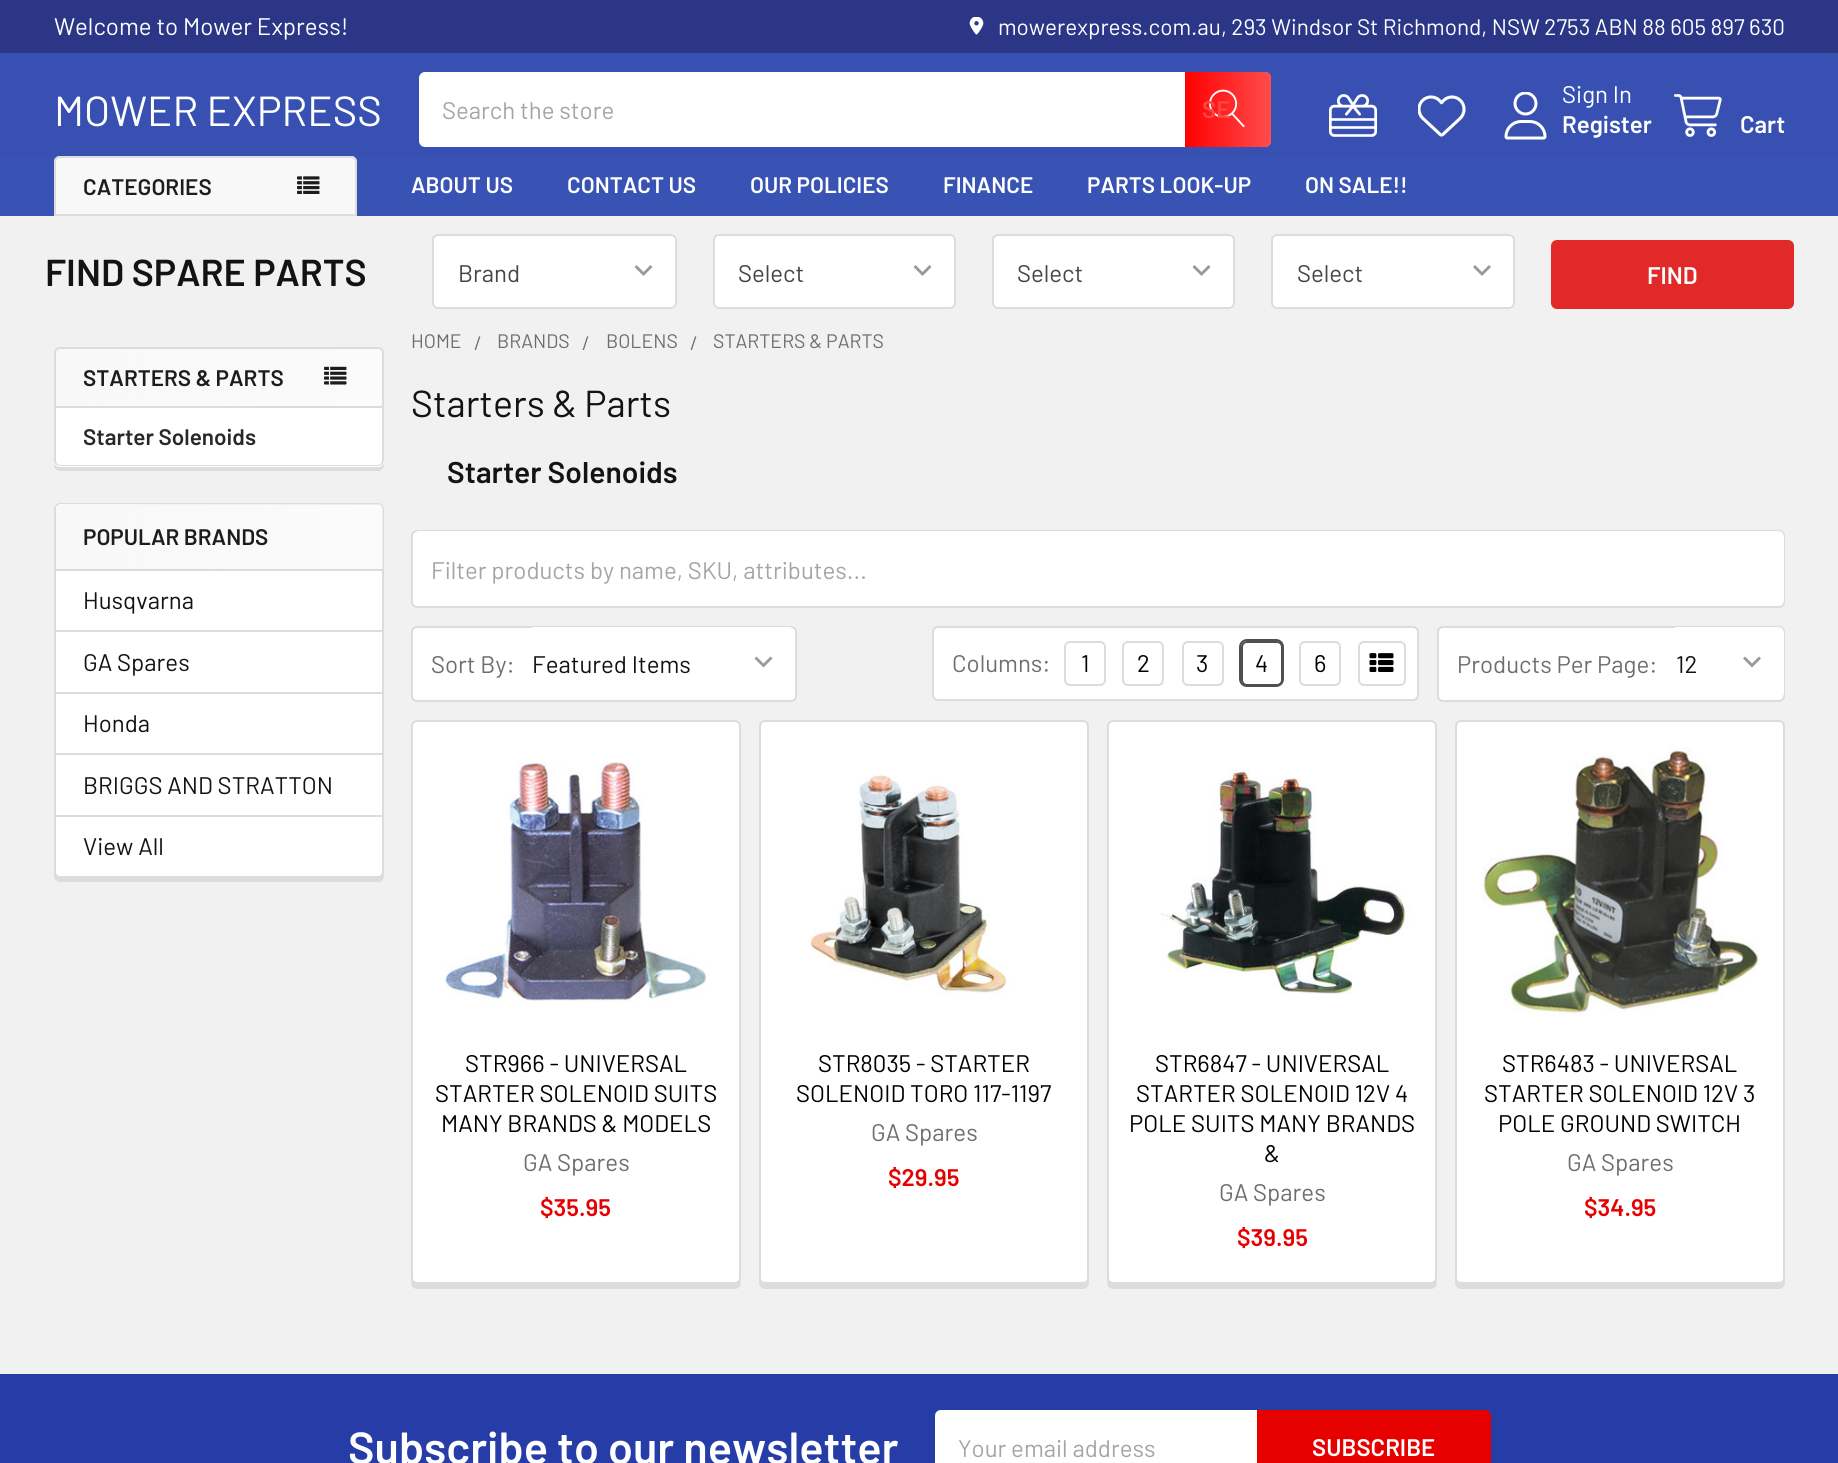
import math
import cairocffi as cairo

surface = cairo.ImageSurface(cairo.FORMAT_RGB24, 1838, 1463)
ctx = cairo.Context(surface)
options = cairo.FontOptions()
options.set_hint_metrics(cairo.HINT_METRICS_OFF)
options.set_hint_style(cairo.HINT_STYLE_NONE)
ctx.set_font_options(options)
ctx.set_miter_limit(4)


def rgb(r, g, b):
    ctx.set_source_rgb(r / 255, g / 255, b / 255)


def face(family, size, italic, bold):
    ctx.select_font_face(family, cairo.FONT_SLANT_ITALIC if italic else cairo.FONT_SLANT_NORMAL, cairo.FONT_WEIGHT_BOLD if bold else cairo.FONT_WEIGHT_NORMAL)
    ctx.set_font_size(size)


def label(x, y, s):
    ctx.move_to(x, y)
    ctx.show_text(s)


def rect(x, y, w, h):
    ctx.rectangle(x, y, w, h)
    ctx.fill()


def rrect(x, y, w, h, r):
    ctx.new_sub_path()
    for i, (u, v) in enumerate([(x + w - r, y + h - r), (x + r, y + h - r), (x + r, y + r), (x + w - r, y + r)]):
        ctx.arc(u, v, r, i * math.pi / 2, (i + 1) * math.pi / 2)
    ctx.close_path()


def image(path, x, y, w, h):
    ctx.save()
    ctx.set_source_surface(cairo.ImageSurface.create_from_png(path), x, y)
    ctx.rectangle(x, y, w, h)
    ctx.fill()
    ctx.restore()


rgb(241, 241, 242)
ctx.paint()
rgb(55, 80, 178)
rect(0, 55, 1838, 101)
rgb(43, 54, 135)
rect(0, 0, 1838, 53)
rgb(56, 79, 178)
rect(0, 53, 1838, 2)
face('Barlow', 24, 0, 0)
rgb(255, 255, 255)
label(54, 35, 'Welcome to Mower Express!')
image('image0.png', 969, 17, 15, 18)
face('Barlow', 22.5, 0, 0)
label(998, 35, 'mowerexpress.com.au, 293 Windsor St Richmond, NSW 2753 ABN 88 605 897 630')
face('Barlow', 42, 0, 0)
label(54, 126, 'MOWER EXPRESS')
rrect(419, 72, 852, 75, 6)
ctx.fill()
gradient = cairo.LinearGradient(1185, 110, 1271, 110)
gradient.add_color_stop_rgba(0, 1, 0, 0, 1)
gradient.add_color_stop_rgba(1, 1, 0, 0, 0.7)
ctx.set_source(gradient)
ctx.new_path()
ctx.move_to(1185, 72)
ctx.line_to(1265, 72)
ctx.curve_to(1268.5, 72, 1271, 74.5, 1271, 78)
ctx.line_to(1271, 141)
ctx.curve_to(1271, 144.5, 1268.5, 147, 1265, 147)
ctx.line_to(1185, 147)
ctx.close_path()
ctx.fill()
image('image1.png', 1209, 89, 36, 39)
face('Barlow', 24, 0, 0)
rgb(165, 165, 165)
label(442, 119, 'Search the store')
face('Barlow SemiBold', 24, 0, 0)
rgb(255, 69, 69)
label(1202, 118, 'SE')
image('image2.png', 1329, 94, 48, 43)
image('image3.png', 1418, 95, 48, 42)
image('image4.png', 1504, 92, 43, 48)
face('Barlow', 24, 0, 0)
rgb(255, 255, 255)
label(1562, 103, 'Sign In')
face('Barlow SemiBold', 24, 0, 0)
label(1562, 133, 'Register')
image('image5.png', 1674, 94, 48, 43)
label(1740, 133, 'Cart')
rgb(56, 83, 180)
rect(0, 156, 1838, 60)
rgb(248, 248, 248)
rrect(54, 156, 303, 60, 6)
ctx.fill()
ctx.new_path()
ctx.move_to(60, 157)
ctx.line_to(351, 157)
ctx.curve_to(354, 157, 356, 159, 356, 162)
ctx.line_to(356, 215)
ctx.line_to(55, 215)
ctx.line_to(55, 162)
ctx.curve_to(55, 159, 57, 157, 60, 157)
ctx.close_path()
rgb(220, 220, 220)
ctx.stroke()
face('Barlow SemiBold', 22.5, 0, 0)
rgb(29, 29, 29)
label(83, 195, 'CATEGORIES')
image('image6.png', 297, 176, 23, 18)
rgb(255, 255, 255)
label(411, 193, 'ABOUT US')
label(567, 193, 'CONTACT US')
label(750, 193, 'OUR POLICIES')
label(943, 193, 'FINANCE')
label(1087, 193, 'PARTS LOOK-UP')
label(1305, 193, 'ON SALE!!')
face('Barlow SemiBold', 37.5, 0, 0)
rgb(19, 19, 19)
label(45, 286, 'FIND SPARE PARTS')
rgb(255, 255, 255)
rrect(432, 234, 245, 75, 6)
ctx.fill()
rgb(153, 153, 153)
ctx.new_path()
ctx.move_to(650.5, 265)
ctx.line_to(643.5, 272)
ctx.line_to(636.5, 265)
ctx.line_to(634.5, 267)
ctx.line_to(643.5, 276)
ctx.line_to(652.5, 267)
ctx.close_path()
ctx.fill()
rrect(433, 235, 243, 73, 5)
rgb(220, 220, 220)
ctx.stroke()
face('Barlow', 24, 0, 0)
rgb(69, 69, 69)
label(458, 282, 'Brand')
rgb(255, 255, 255)
rrect(713, 234, 243, 75, 6)
ctx.fill()
rgb(153, 153, 153)
ctx.new_path()
ctx.move_to(929.5, 265)
ctx.line_to(922.5, 272)
ctx.line_to(915.5, 265)
ctx.line_to(913.5, 267)
ctx.line_to(922.5, 276)
ctx.line_to(931.5, 267)
ctx.close_path()
ctx.fill()
rrect(714, 235, 241, 73, 5)
rgb(220, 220, 220)
ctx.stroke()
rgb(69, 69, 69)
label(738, 282, 'Select')
rgb(255, 255, 255)
rrect(992, 234, 243, 75, 6)
ctx.fill()
rgb(153, 153, 153)
ctx.new_path()
ctx.move_to(1208.5, 265)
ctx.line_to(1201.5, 272)
ctx.line_to(1194.5, 265)
ctx.line_to(1192.5, 267)
ctx.line_to(1201.5, 276)
ctx.line_to(1210.5, 267)
ctx.close_path()
ctx.fill()
rrect(993, 235, 241, 73, 5)
rgb(220, 220, 220)
ctx.stroke()
rgb(69, 69, 69)
label(1017, 282, 'Select')
rgb(255, 255, 255)
rrect(1271, 234, 244, 75, 6)
ctx.fill()
rgb(153, 153, 153)
ctx.new_path()
ctx.move_to(1489, 265)
ctx.line_to(1482, 272)
ctx.line_to(1475, 265)
ctx.line_to(1473, 267)
ctx.line_to(1482, 276)
ctx.line_to(1491, 267)
ctx.close_path()
ctx.fill()
rrect(1272, 235, 242, 73, 5)
rgb(220, 220, 220)
ctx.stroke()
rgb(69, 69, 69)
label(1297, 282, 'Select')
rgb(225, 41, 41)
rrect(1552, 241, 241, 67, 5)
ctx.fill_preserve()
ctx.stroke()
face('Barlow SemiBold', 24, 0, 0)
rgb(255, 255, 255)
label(1647, 284, 'FIND')
rgb(220, 220, 220)
ctx.new_path()
ctx.move_to(54, 460)
ctx.line_to(54, 465)
ctx.curve_to(54, 468, 57, 471, 60, 471)
ctx.line_to(378, 471)
ctx.curve_to(381, 471, 384, 468, 384, 465)
ctx.line_to(384, 460)
ctx.curve_to(384, 464, 381, 466, 378, 466)
ctx.line_to(60, 466)
ctx.curve_to(57, 466, 54, 464, 54, 460)
ctx.close_path()
ctx.fill()
rgb(255, 255, 255)
rrect(54, 347, 330, 120, 6)
ctx.fill()
gradient = cairo.LinearGradient(54, 407, 384, 407)
gradient.add_color_stop_rgba(0, 0.973, 0.973, 0.973, 1)
gradient.add_color_stop_rgba(1, 0.973, 0.973, 0.973, 0.6)
ctx.set_source(gradient)
rrect(54, 347, 330, 120, 6)
ctx.fill()
ctx.new_path()
ctx.move_to(60, 348)
ctx.line_to(378, 348)
ctx.curve_to(381, 348, 383, 350, 383, 353)
ctx.line_to(383, 407)
ctx.line_to(55, 407)
ctx.line_to(55, 353)
ctx.curve_to(55, 350, 57, 348, 60, 348)
ctx.close_path()
rgb(220, 220, 220)
ctx.stroke()
face('Barlow SemiBold', 22.5, 0, 0)
rgb(29, 29, 29)
label(83, 386, 'STARTERS & PARTS')
image('image7.png', 324, 366, 23, 19)
rgb(255, 255, 255)
ctx.new_path()
ctx.move_to(54, 408)
ctx.line_to(384, 408)
ctx.line_to(384, 461)
ctx.curve_to(384, 464.5, 381.5, 467, 378, 467)
ctx.line_to(60, 467)
ctx.curve_to(56.5, 467, 54, 464.5, 54, 461)
ctx.close_path()
ctx.fill()
rgb(220, 220, 220)
ctx.set_fill_rule(cairo.FILL_RULE_EVEN_ODD)
ctx.new_path()
ctx.move_to(54, 408)
ctx.line_to(384, 408)
ctx.line_to(384, 460)
ctx.curve_to(384, 464, 381, 466, 378, 466)
ctx.line_to(60, 466)
ctx.curve_to(57, 466, 54, 464, 54, 460)
ctx.close_path()
ctx.move_to(56, 408)
ctx.line_to(382, 408)
ctx.line_to(382, 460)
ctx.curve_to(382, 463, 380, 465, 378, 465)
ctx.line_to(60, 465)
ctx.curve_to(58, 465, 56, 463, 56, 460)
ctx.close_path()
ctx.fill()
rgb(40, 40, 40)
label(83, 445, 'Starter Solenoids')
rgb(220, 220, 220)
ctx.set_fill_rule(cairo.FILL_RULE_WINDING)
ctx.new_path()
ctx.move_to(54, 872)
ctx.line_to(54, 876)
ctx.curve_to(54, 879, 57, 882, 60, 882)
ctx.line_to(378, 882)
ctx.curve_to(381, 882, 384, 879, 384, 876)
ctx.line_to(384, 872)
ctx.curve_to(384, 875, 381, 878, 378, 878)
ctx.line_to(60, 878)
ctx.curve_to(57, 878, 54, 875, 54, 872)
ctx.close_path()
ctx.fill()
rgb(255, 255, 255)
rrect(55, 504, 328, 373, 5)
ctx.fill_preserve()
rgb(220, 220, 220)
ctx.stroke()
gradient = cairo.LinearGradient(56, 536, 383, 536)
gradient.add_color_stop_rgba(0, 0.973, 0.973, 0.973, 1)
gradient.add_color_stop_rgba(1, 0.973, 0.973, 0.973, 0.6)
ctx.set_source(gradient)
ctx.new_path()
ctx.move_to(61, 504)
ctx.line_to(378, 504)
ctx.curve_to(381, 504, 383, 506, 383, 509)
ctx.line_to(383, 570)
ctx.line_to(56, 570)
ctx.line_to(56, 509)
ctx.curve_to(56, 506, 58, 504, 61, 504)
ctx.close_path()
ctx.fill()
rgb(220, 220, 220)
rect(56, 569, 327, 2)
rgb(29, 29, 29)
label(83, 545, 'POPULAR BRANDS')
face('Barlow', 24, 0, 0)
rgb(19, 19, 19)
label(83, 609, 'Husqvarna')
rgb(220, 220, 220)
rect(56, 630, 327, 2)
rgb(19, 19, 19)
label(83, 671, 'GA Spares')
rgb(220, 220, 220)
rect(56, 692, 327, 2)
rgb(19, 19, 19)
label(83, 732, 'Honda')
rgb(220, 220, 220)
rect(56, 753, 327, 2)
rgb(19, 19, 19)
label(83, 794, 'BRIGGS AND STRATTON')
rgb(220, 220, 220)
rect(56, 815, 327, 2)
rgb(19, 19, 19)
label(83, 855, 'View All')
face('Barlow', 19.5, 0, 0)
rgb(110, 110, 110)
label(411, 348, 'HOME')
label(474, 350, '/')
label(497, 348, 'BRANDS')
label(582, 350, '/')
label(606, 348, 'BOLENS')
label(690, 350, '/')
label(713, 348, 'STARTERS & PARTS')
face('Barlow', 37.5, 0, 0)
rgb(19, 19, 19)
label(411, 417, 'Starters & Parts')
face('Barlow SemiBold', 30, 0, 0)
label(447, 483, 'Starter Solenoids')
rgb(255, 255, 255)
rrect(412, 531, 1372, 76, 5)
ctx.fill_preserve()
rgb(220, 220, 220)
ctx.stroke()
rgb(255, 255, 255)
rrect(413, 531, 1371, 75, 6)
ctx.fill()
face('Barlow', 24, 0, 0)
rgb(165, 165, 165)
label(431, 579, 'Filter products by name, SKU, attributes...')
rgb(255, 255, 255)
rrect(412, 627, 384, 74, 5)
ctx.fill_preserve()
rgb(220, 220, 220)
ctx.stroke()
rgb(110, 110, 110)
label(431, 673, 'Sort By:')
rgb(255, 255, 255)
rrect(528, 627, 267, 72, 6)
ctx.fill()
rgb(153, 153, 153)
ctx.new_path()
ctx.move_to(770.5, 656.5)
ctx.line_to(763.5, 663.5)
ctx.line_to(756.5, 656.5)
ctx.line_to(754.5, 658.5)
ctx.line_to(763.5, 667.5)
ctx.line_to(772.5, 658.5)
ctx.close_path()
ctx.fill()
rgb(19, 19, 19)
label(532, 673, 'Featured Items')
rgb(255, 255, 255)
rrect(933, 627, 485, 73, 5)
ctx.fill_preserve()
rgb(220, 220, 220)
ctx.stroke()
rgb(110, 110, 110)
label(952, 672, 'Columns:')
rrect(1065, 642, 40, 43, 5)
rgb(220, 220, 220)
ctx.stroke()
rgb(0, 0, 0)
label(1081, 672, '1')
rrect(1123, 642, 40, 43, 5)
rgb(220, 220, 220)
ctx.stroke()
rgb(0, 0, 0)
label(1137, 672, '2')
rrect(1183, 642, 40, 43, 5)
rgb(220, 220, 220)
ctx.stroke()
rgb(0, 0, 0)
label(1196, 672, '3')
rrect(1240, 640, 43, 46, 7)
rgb(79, 79, 79)
ctx.stroke()
rrect(1242, 642, 40, 43, 5)
ctx.stroke()
rgb(0, 0, 0)
label(1255, 672, '4')
rrect(1300, 642, 40, 43, 5)
rgb(220, 220, 220)
ctx.stroke()
rgb(0, 0, 0)
label(1314, 672, '6')
rrect(1359, 642, 46, 43, 5)
rgb(220, 220, 220)
ctx.stroke()
image('image8.png', 1369, 653, 25, 19)
rgb(255, 255, 255)
rrect(1438, 627, 346, 74, 5)
ctx.fill_preserve()
rgb(220, 220, 220)
ctx.stroke()
rgb(110, 110, 110)
label(1457, 673, 'Products Per Page:')
rgb(255, 255, 255)
rrect(1671, 627, 113, 72, 6)
ctx.fill()
rgb(153, 153, 153)
ctx.new_path()
ctx.move_to(1759, 656.5)
ctx.line_to(1752, 663.5)
ctx.line_to(1745, 656.5)
ctx.line_to(1743, 658.5)
ctx.line_to(1752, 667.5)
ctx.line_to(1761, 658.5)
ctx.close_path()
ctx.fill()
rgb(19, 19, 19)
label(1676, 673, '12')
rgb(220, 220, 220)
ctx.new_path()
ctx.move_to(411, 1278)
ctx.line_to(411, 1283)
ctx.curve_to(411, 1286, 414, 1289, 417, 1289)
ctx.line_to(735, 1289)
ctx.curve_to(738, 1289, 741, 1286, 741, 1283)
ctx.line_to(741, 1278)
ctx.curve_to(741, 1281, 738, 1284, 735, 1284)
ctx.line_to(417, 1284)
ctx.curve_to(414, 1284, 411, 1281, 411, 1278)
ctx.close_path()
ctx.fill()
rgb(255, 255, 255)
rrect(412, 721, 328, 562, 5)
ctx.fill_preserve()
rgb(220, 220, 220)
ctx.stroke()
image('image9.png', 445, 761, 262, 241)
rgb(0, 0, 0)
label(465, 1072, 'STR966 - UNIVERSAL')
label(435, 1102, 'STARTER SOLENOID SUITS')
label(441, 1132, 'MANY BRANDS & MODELS')
rgb(110, 110, 110)
label(523, 1171, 'GA Spares')
face('Barlow SemiBold', 24, 0, 0)
rgb(231, 0, 0)
label(540, 1216, '$35.95')
rgb(220, 220, 220)
ctx.new_path()
ctx.move_to(759, 1278)
ctx.line_to(759, 1283)
ctx.curve_to(759, 1286, 762, 1289, 765, 1289)
ctx.line_to(1083, 1289)
ctx.curve_to(1086, 1289, 1089, 1286, 1089, 1283)
ctx.line_to(1089, 1278)
ctx.curve_to(1089, 1281, 1086, 1284, 1083, 1284)
ctx.line_to(765, 1284)
ctx.curve_to(762, 1284, 759, 1281, 759, 1278)
ctx.close_path()
ctx.fill()
rgb(255, 255, 255)
rrect(760, 721, 328, 562, 5)
ctx.fill_preserve()
rgb(220, 220, 220)
ctx.stroke()
image('image10.png', 808, 774, 202, 220)
face('Barlow', 24, 0, 0)
rgb(0, 0, 0)
label(818, 1072, 'STR8035 - STARTER')
label(796, 1102, 'SOLENOID TORO 117-1197')
rgb(110, 110, 110)
label(871, 1141, 'GA Spares')
face('Barlow SemiBold', 24, 0, 0)
rgb(231, 0, 0)
label(888, 1186, '$29.95')
rgb(220, 220, 220)
ctx.new_path()
ctx.move_to(1107, 1278)
ctx.line_to(1107, 1283)
ctx.curve_to(1107, 1286, 1110, 1289, 1113, 1289)
ctx.line_to(1431, 1289)
ctx.curve_to(1434, 1289, 1437, 1286, 1437, 1283)
ctx.line_to(1437, 1278)
ctx.curve_to(1437, 1281, 1434, 1284, 1431, 1284)
ctx.line_to(1113, 1284)
ctx.curve_to(1110, 1284, 1107, 1281, 1107, 1278)
ctx.close_path()
ctx.fill()
rgb(255, 255, 255)
rrect(1108, 721, 328, 562, 5)
ctx.fill_preserve()
rgb(220, 220, 220)
ctx.stroke()
image('image11.png', 1161, 769, 249, 225)
face('Barlow', 24, 0, 0)
rgb(0, 0, 0)
label(1155, 1072, 'STR6847 - UNIVERSAL')
label(1136, 1102, 'STARTER SOLENOID 12V 4')
label(1129, 1132, 'POLE SUITS MANY BRANDS')
label(1264, 1162, '&')
rgb(110, 110, 110)
label(1219, 1201, 'GA Spares')
face('Barlow SemiBold', 24, 0, 0)
rgb(231, 0, 0)
label(1237, 1246, '$39.95')
rgb(220, 220, 220)
ctx.new_path()
ctx.move_to(1455, 1278)
ctx.line_to(1455, 1283)
ctx.curve_to(1455, 1286, 1458, 1289, 1461, 1289)
ctx.line_to(1779, 1289)
ctx.curve_to(1782, 1289, 1785, 1286, 1785, 1283)
ctx.line_to(1785, 1278)
ctx.curve_to(1785, 1281, 1782, 1284, 1779, 1284)
ctx.line_to(1461, 1284)
ctx.curve_to(1458, 1284, 1455, 1281, 1455, 1278)
ctx.close_path()
ctx.fill()
rgb(255, 255, 255)
rrect(1456, 721, 328, 562, 5)
ctx.fill_preserve()
rgb(220, 220, 220)
ctx.stroke()
image('image12.png', 1482, 747, 278, 269)
face('Barlow', 24, 0, 0)
rgb(0, 0, 0)
label(1502, 1072, 'STR6483 - UNIVERSAL')
label(1484, 1102, 'STARTER SOLENOID 12V 3')
label(1498, 1132, 'POLE GROUND SWITCH')
rgb(110, 110, 110)
label(1567, 1171, 'GA Spares')
face('Barlow SemiBold', 24, 0, 0)
rgb(231, 0, 0)
label(1584, 1216, '$34.95')
rgb(38, 61, 168)
rect(0, 1374, 1838, 89)
face('Barlow SemiBold', 45, 0, 0)
rgb(255, 255, 255)
label(348, 1464, 'Subscribe to our newsletter')
ctx.new_path()
ctx.move_to(941, 1410)
ctx.line_to(1257, 1410)
ctx.line_to(1257, 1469)
ctx.line_to(941, 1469)
ctx.curve_to(937.5, 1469, 935, 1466.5, 935, 1463)
ctx.line_to(935, 1416)
ctx.curve_to(935, 1412.5, 937.5, 1410, 941, 1410)
ctx.close_path()
ctx.fill()
face('Barlow', 24, 0, 0)
rgb(165, 165, 165)
label(958, 1457, 'Your email address')
rgb(231, 0, 0)
ctx.new_path()
ctx.move_to(1258, 1411)
ctx.line_to(1485, 1411)
ctx.curve_to(1488, 1411, 1490, 1413, 1490, 1416)
ctx.line_to(1490, 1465)
ctx.curve_to(1490, 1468, 1488, 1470, 1485, 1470)
ctx.line_to(1258, 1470)
ctx.close_path()
ctx.fill_preserve()
ctx.stroke()
face('Barlow SemiBold', 24, 0, 0)
rgb(255, 255, 255)
label(1312, 1456, 'SUBSCRIBE')
surface.write_to_png('render.png')
